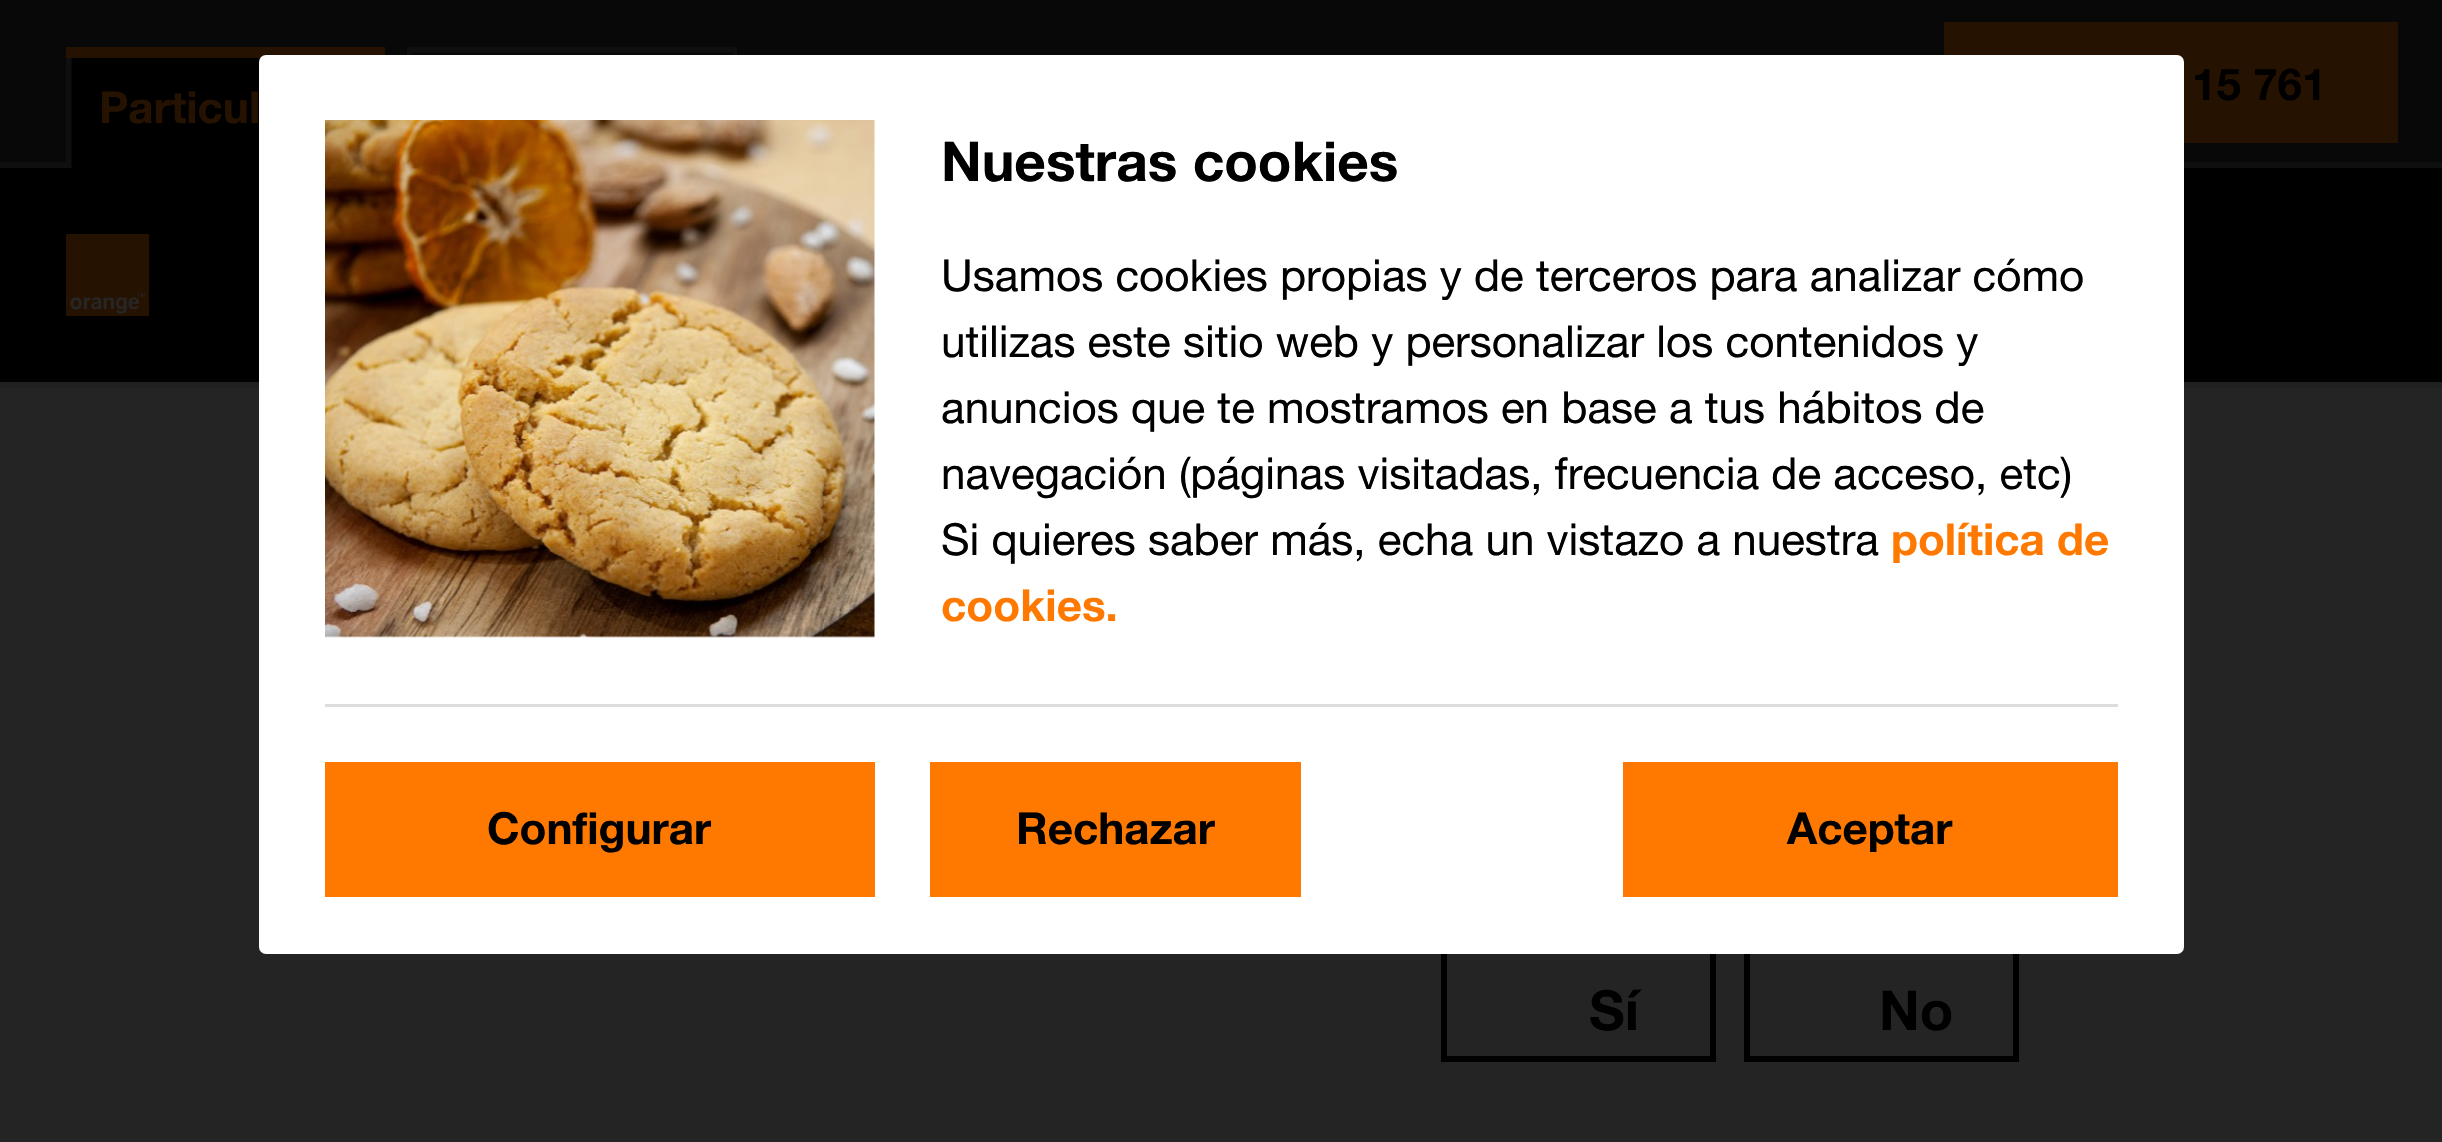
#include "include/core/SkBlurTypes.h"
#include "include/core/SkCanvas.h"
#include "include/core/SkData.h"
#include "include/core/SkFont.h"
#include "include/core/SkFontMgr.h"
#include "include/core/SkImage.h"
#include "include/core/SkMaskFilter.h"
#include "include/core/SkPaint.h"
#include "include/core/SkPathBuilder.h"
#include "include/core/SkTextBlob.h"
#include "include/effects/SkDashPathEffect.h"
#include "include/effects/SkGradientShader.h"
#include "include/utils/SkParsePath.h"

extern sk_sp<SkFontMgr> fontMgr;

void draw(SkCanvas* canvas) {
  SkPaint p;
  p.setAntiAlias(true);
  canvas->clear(SkColorSetRGB(36, 36, 36));
  p.setStyle(SkPaint::kStroke_Style);
  p.setStrokeWidth(6);
  p.setColor(SkColorSetARGB(51, 15, 15, 15));
  canvas->drawRect(SkRect::MakeLTRB(-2, -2, 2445, 385), p);
  p.setStyle(SkPaint::kFill_Style);
  p.setColor(SK_ColorBLACK);
  canvas->drawRect(SkRect::MakeLTRB(0, 168, 2442, 382), p);
  p.setColor(SkColorSetRGB(8, 8, 8));
  canvas->drawRect(SkRect::MakeLTRB(0, 0, 2442, 162), p);
  p.setColor(SkColorSetRGB(38, 18, 0));
  canvas->drawRect(SkRect::MakeLTRB(1944, 22, 2398, 143), p);
  p.setColor(SkColorSetRGB(15, 15, 15));
  canvas->drawRect(SkRect::MakeLTRB(0, 162, 2442, 168), p);
  p.setColor(SK_ColorBLACK);
  canvas->drawRect(SkRect::MakeLTRB(71, 58, 261, 168), p);
  canvas->save();
  canvas->clipRect(SkRect::MakeLTRB(66, 47, 385, 168));
  p.setStyle(SkPaint::kStroke_Style);
  p.setStrokeWidth(11);
  p.setColor(SkColorSetRGB(15, 15, 15));
  canvas->drawPath(SkPathBuilder().moveTo(66, 47).lineTo(66, 168).detach(), p);
  canvas->restore();
  p.setStyle(SkPaint::kFill_Style);
  p.setColor(SkColorSetRGB(38, 18, 0));
  canvas->drawRect(SkRect::MakeLTRB(66, 47, 385, 58), p);
  canvas->save();
  canvas->clipRect(SkRect::MakeLTRB(407, 47, 737, 168));
  p.setStyle(SkPaint::kStroke_Style);
  p.setColor(SkColorSetRGB(15, 15, 15));
  canvas->drawPath(SkPathBuilder().moveTo(407, 47).lineTo(407, 168).detach(), p);
  canvas->restore();
  p.setStyle(SkPaint::kFill_Style);
  canvas->drawRect(SkRect::MakeLTRB(733, 47, 737, 55), p);
  canvas->save();
  canvas->clipRect(SkRect::MakeLTRB(407, 47, 737, 168));
  p.setStyle(SkPaint::kStroke_Style);
  canvas->drawPath(SkPathBuilder().moveTo(407, 47).lineTo(738.5f, 47).detach(), p);
  canvas->restore();
  canvas->drawImageRect(SkImages::DeferredFromEncodedData(SkData::MakeFromFileName("images/1.png")), SkRect::MakeLTRB(66, 234, 149, 316), SkSamplingOptions());
  p.setStrokeWidth(6);
  p.setColor(SK_ColorBLACK);
  canvas->drawRect(SkRect::MakeLTRB(1444, 946, 1713, 1059), p);
  canvas->drawRect(SkRect::MakeLTRB(1747, 946, 2016, 1059), p);
  p.setStyle(SkPaint::kFill_Style);
  p.setColor(SK_ColorWHITE);
  canvas->drawRoundRect(SkRect::MakeLTRB(259, 55, 2184, 954), 7, 7, p);
  canvas->drawImageRect(SkImages::DeferredFromEncodedData(SkData::MakeFromFileName("images/2.png")), SkRect::MakeLTRB(325, 120, 875, 638), SkSamplingOptions());
  p.setColor(SkColorSetRGB(221, 221, 221));
  canvas->drawRect(SkRect::MakeLTRB(325, 704, 2118, 707), p);
  p.setColor(SkColorSetRGB(255, 121, 0));
  canvas->drawRect(SkRect::MakeLTRB(325, 762, 875, 897), p);
  canvas->drawRect(SkRect::MakeLTRB(930, 762, 1301, 897), p);
  canvas->drawRect(SkRect::MakeLTRB(1623, 762, 2118, 897), p);
  SkFont font1(fontMgr->matchFamilyStyle("Helvetica Neue", SkFontStyle::Bold()), 44);
  font1.setSubpixel(true);
  p.setColor(SK_ColorBLACK);
  canvas->drawString("15 761", 2192, 100, font1, p);
  p.setColor(SkColorSetRGB(38, 18, 0));
  canvas->drawString("Particul", 99, 123, font1, p);
  SkFont font2(fontMgr->matchFamilyStyle("Helvetica Neue", SkFontStyle::Bold()), 55);
  font2.setSubpixel(true);
  p.setColor(SK_ColorBLACK);
  canvas->drawString("Nuestras cookies", 941, 181, font2, p);
  SkFont font3(fontMgr->matchFamilyStyle("Helvetica Neue", SkFontStyle::Normal()), 44);
  font3.setSubpixel(true);
  canvas->drawString("Usamos cookies propias y de terceros para analizar cómo", 941, 291, font3, p);
  canvas->drawString("utilizas este sitio web y personalizar los contenidos y", 941, 357, font3, p);
  canvas->drawString("anuncios que te mostramos en base a tus hábitos de", 941, 423, font3, p);
  canvas->drawString("navegación (páginas visitadas, frecuencia de acceso, etc)", 941, 489, font3, p);
  canvas->drawString("Si quieres saber más, echa un vistazo a nuestra", 941, 555, font3, p);
  p.setColor(SkColorSetRGB(255, 121, 0));
  canvas->drawString("política de", 1891, 555, font1, p);
  canvas->drawString("cookies.", 941, 621, font1, p);
  p.setColor(SK_ColorBLACK);
  canvas->drawString("Configurar", 487, 844, font1, p);
  canvas->drawString("Rechazar", 1016, 844, font1, p);
  canvas->drawString("Aceptar", 1787, 844, font1, p);
  canvas->drawString("Sí", 1589, 1030, font2, p);
  canvas->drawString("No", 1879, 1030, font2, p);
}
